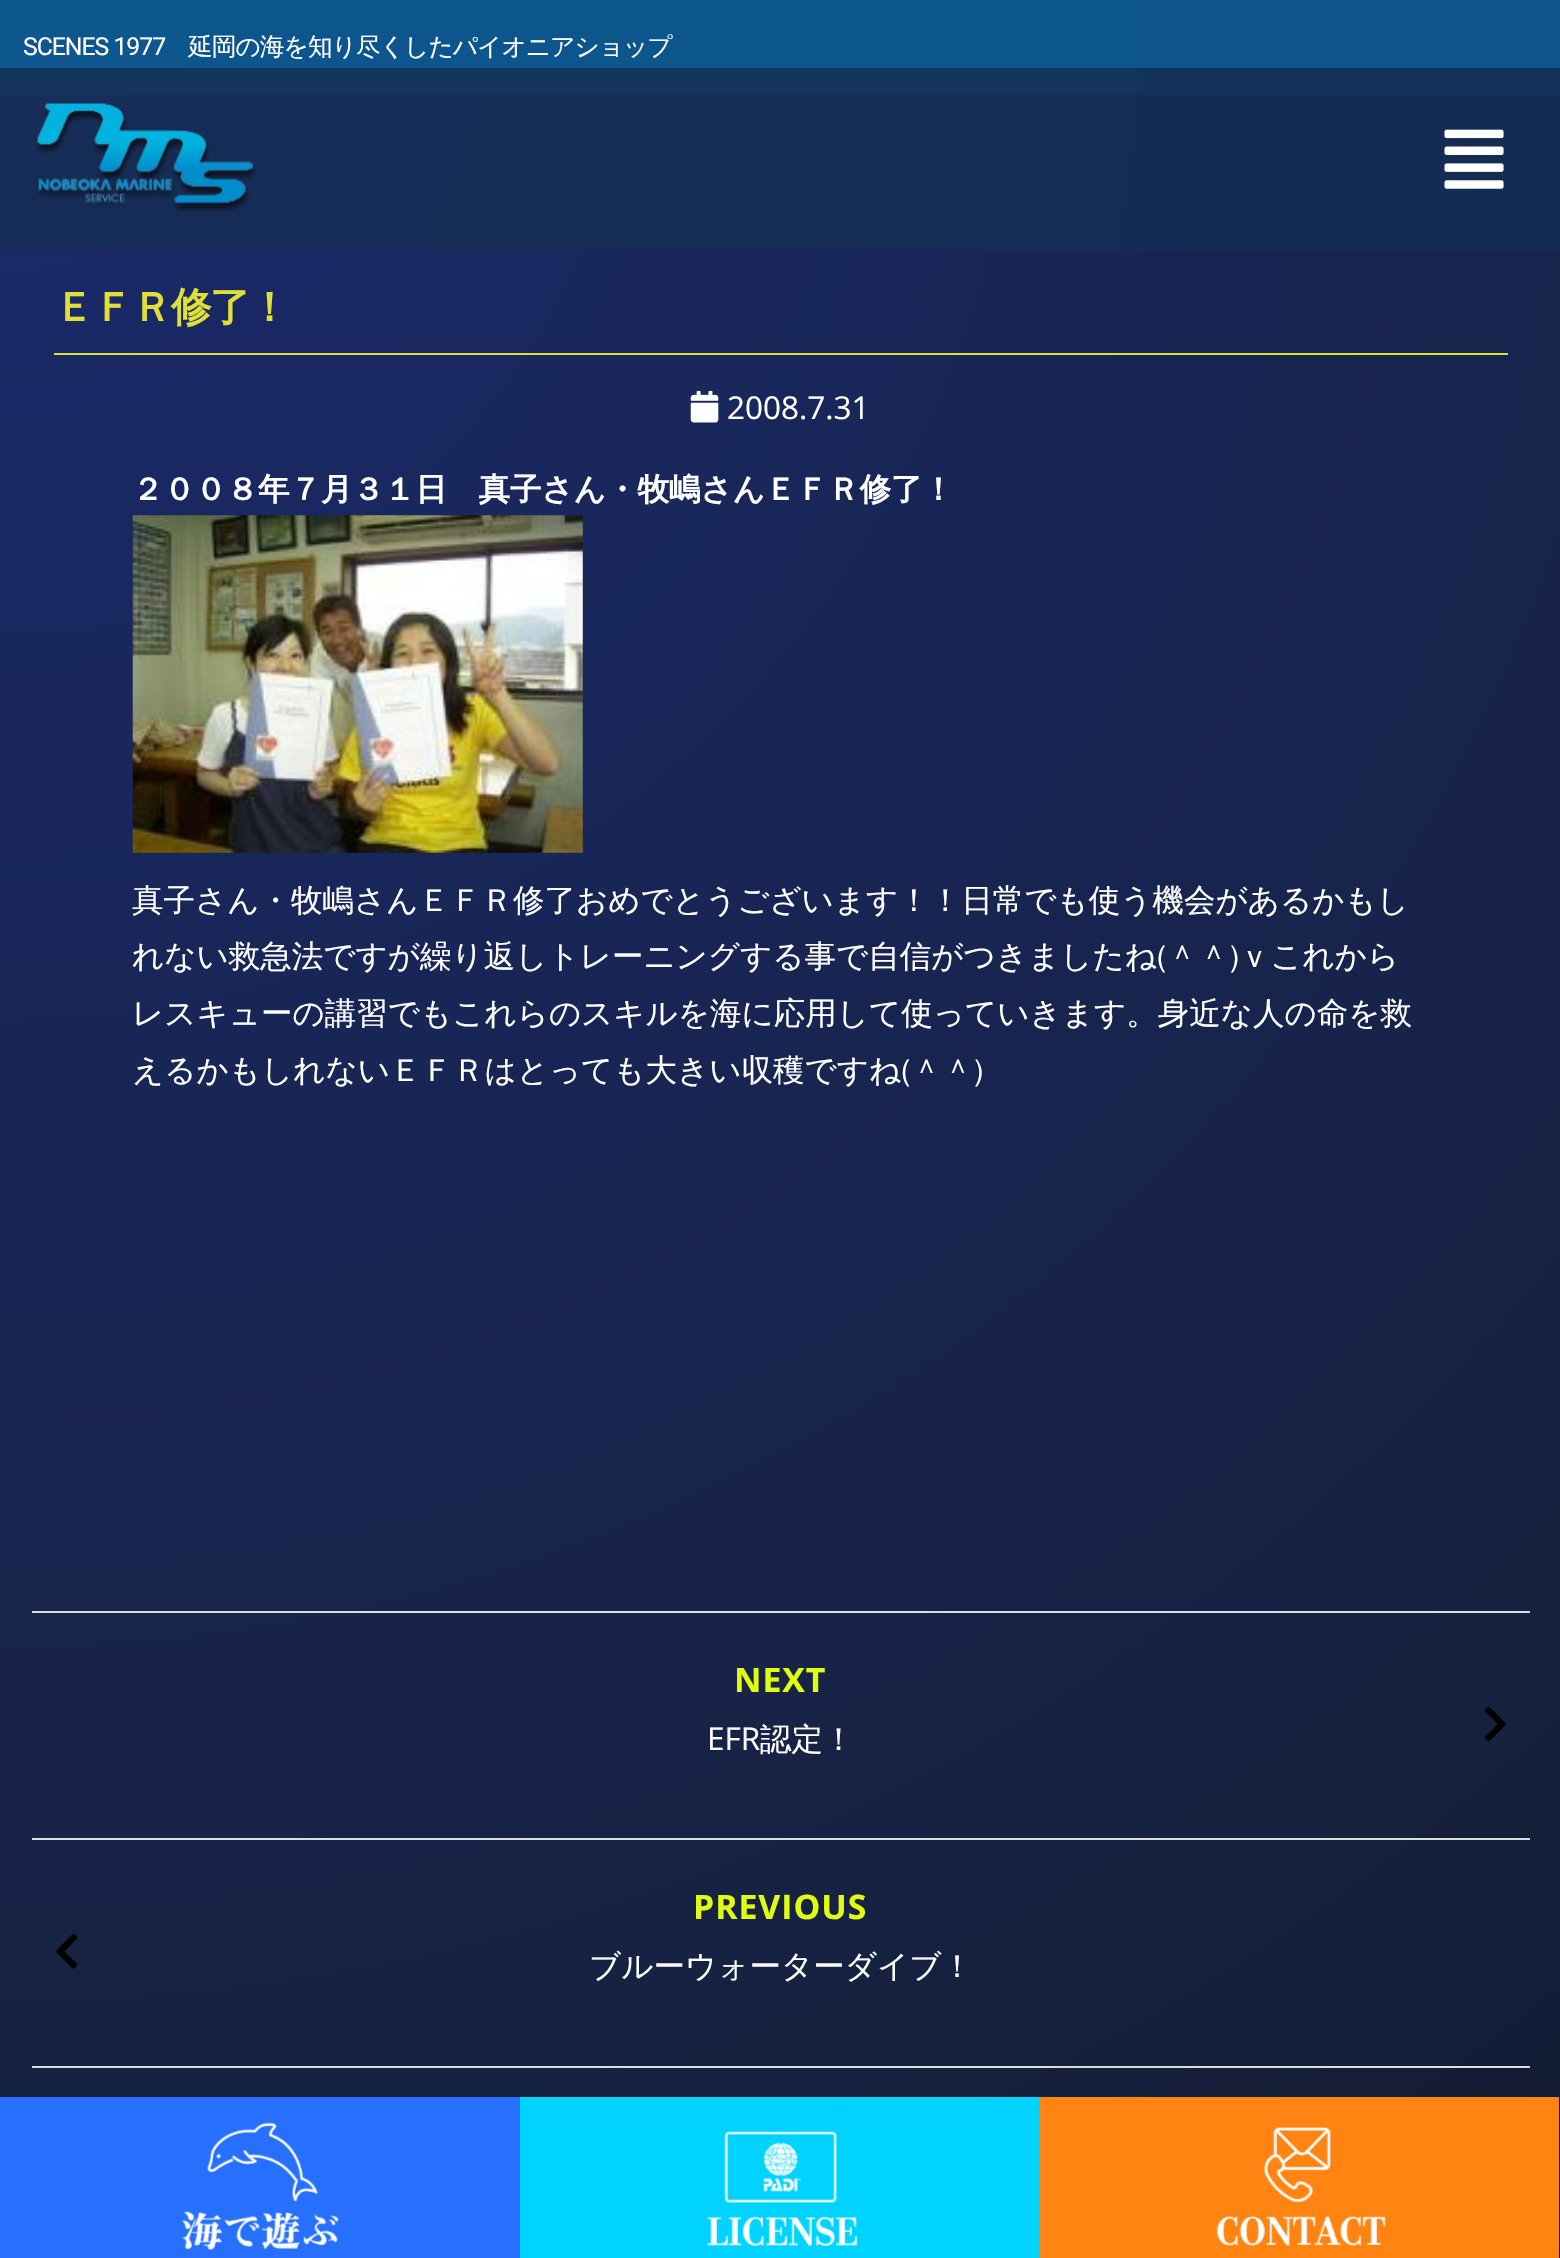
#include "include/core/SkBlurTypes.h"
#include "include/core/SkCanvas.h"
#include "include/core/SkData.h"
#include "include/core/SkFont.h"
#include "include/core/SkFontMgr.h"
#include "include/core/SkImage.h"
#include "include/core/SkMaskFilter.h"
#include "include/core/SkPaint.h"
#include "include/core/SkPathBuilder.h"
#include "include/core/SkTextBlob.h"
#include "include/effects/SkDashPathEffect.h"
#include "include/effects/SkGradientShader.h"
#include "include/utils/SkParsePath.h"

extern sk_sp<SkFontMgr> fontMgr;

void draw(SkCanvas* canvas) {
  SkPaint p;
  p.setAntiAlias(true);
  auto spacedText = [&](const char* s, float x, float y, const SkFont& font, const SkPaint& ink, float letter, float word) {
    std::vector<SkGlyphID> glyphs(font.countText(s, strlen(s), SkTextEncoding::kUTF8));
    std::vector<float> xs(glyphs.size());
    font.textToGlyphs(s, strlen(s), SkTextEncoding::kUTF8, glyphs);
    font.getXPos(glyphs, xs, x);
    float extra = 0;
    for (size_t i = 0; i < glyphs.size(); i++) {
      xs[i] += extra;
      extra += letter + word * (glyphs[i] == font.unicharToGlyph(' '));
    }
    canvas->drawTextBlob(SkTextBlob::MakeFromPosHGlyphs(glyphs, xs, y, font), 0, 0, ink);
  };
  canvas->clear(SK_ColorWHITE);
  {
    const SkColor colors[] = {SkColorSetRGB(26, 42, 108), SkColorSetRGB(22, 33, 62), SK_ColorBLACK};
    const float stops[] = {0, 0.5f, 1};
    p.setShader(SkGradientShader::MakeRadial({0, 0}, 4568, colors, stops, 3, SkTileMode::kClamp));
    p.setAlpha(255);
  }
  canvas->drawRect(SkRect::MakeLTRB(0, 250, 1560, 2258), p);
  {
    const SkColor colors[] = {SkColorSetRGB(21, 45, 87), SkColorSetRGB(20, 44, 80), SkColorSetRGB(17, 40, 71)};
    const float stops[] = {0, 0.5f, 1};
    p.setShader(SkGradientShader::MakeRadial({0, 0}, 4568, colors, stops, 3, SkTileMode::kClamp));
    p.setAlpha(255);
  }
  canvas->drawRect(SkRect::MakeLTRB(0, 95, 1560, 250), p);
  {
    const SkColor colors[] = {SkColorSetRGB(13, 86, 142), SkColorSetRGB(13, 85, 136), SkColorSetRGB(9, 80, 127)};
    const float stops[] = {0, 0.5f, 1};
    p.setShader(SkGradientShader::MakeRadial({0, 0}, 4568, colors, stops, 3, SkTileMode::kClamp));
    p.setAlpha(255);
  }
  canvas->drawRect(SkRect::MakeLTRB(0, 0, 1560, 68), p);
  {
    const SkColor colors[] = {SkColorSetRGB(19, 52, 91), SkColorSetRGB(19, 51, 90), SkColorSetRGB(18, 51, 89)};
    const float stops[] = {0, 0.5f, 1};
    p.setShader(SkGradientShader::MakeRadial({0, 0}, 4568, colors, stops, 3, SkTileMode::kClamp));
    p.setAlpha(255);
  }
  canvas->drawRect(SkRect::MakeLTRB(0, 68, 1560, 95), p);
  canvas->drawImageRect(SkImages::DeferredFromEncodedData(SkData::MakeFromFileName("images/1.png")), SkRect::MakeLTRB(36, 103, 257, 213), SkSamplingOptions());
  canvas->drawImageRect(SkImages::DeferredFromEncodedData(SkData::MakeFromFileName("images/2.png")), SkRect::MakeLTRB(1444, 129, 1504, 189), SkSamplingOptions());
  p.setShader(nullptr);
  p.setColor(SkColorSetRGB(225, 223, 55));
  canvas->drawRect(SkRect::MakeLTRB(54, 353, 1508, 355), p);
  canvas->drawImageRect(SkImages::DeferredFromEncodedData(SkData::MakeFromFileName("images/3.png")), SkRect::MakeLTRB(690, 390, 719, 423), SkSamplingOptions());
  canvas->drawImageRect(SkImages::DeferredFromEncodedData(SkData::MakeFromFileName("images/4.png")), SkRect::MakeLTRB(132, 515, 583, 853), SkSamplingOptions());
  p.setColor(SkColorSetRGB(221, 221, 221));
  canvas->drawRect(SkRect::MakeLTRB(32, 2066, 1530, 2068), p);
  canvas->drawRect(SkRect::MakeLTRB(32, 1611, 1530, 1613), p);
  canvas->drawImageRect(SkImages::DeferredFromEncodedData(SkData::MakeFromFileName("images/5.png")), SkRect::MakeLTRB(1485, 1706, 1506, 1742), SkSamplingOptions());
  canvas->drawRect(SkRect::MakeLTRB(32, 1838, 1530, 1840), p);
  canvas->drawImageRect(SkImages::DeferredFromEncodedData(SkData::MakeFromFileName("images/6.png")), SkRect::MakeLTRB(56, 1934, 78, 1969), SkSamplingOptions());
  p.setColor(SkColorSetRGB(39, 112, 255));
  canvas->drawRect(SkRect::MakeLTRB(0, 2097, 520, 2258), p);
  canvas->drawImageRect(SkImages::DeferredFromEncodedData(SkData::MakeFromFileName("images/7.png")), SkRect::MakeLTRB(181, 2122, 339, 2250), SkSamplingOptions());
  p.setColor(SkColorSetRGB(0, 211, 255));
  canvas->drawRect(SkRect::MakeLTRB(520, 2097, 1040, 2258), p);
  canvas->drawImageRect(SkImages::DeferredFromEncodedData(SkData::MakeFromFileName("images/8.png")), SkRect::MakeLTRB(707, 2131, 858, 2246), SkSamplingOptions());
  p.setColor(SkColorSetRGB(255, 132, 17));
  canvas->drawRect(SkRect::MakeLTRB(1040, 2097, 1559, 2258), p);
  canvas->drawImageRect(SkImages::DeferredFromEncodedData(SkData::MakeFromFileName("images/9.png")), SkRect::MakeLTRB(1216, 2127, 1386, 2246), SkSamplingOptions());
  SkFont font1(fontMgr->matchFamilyStyle("Roboto", SkFontStyle::Normal()), 24.75f);
  font1.setSubpixel(true);
  p.setColor(SK_ColorWHITE);
  spacedText("SCENES 1977", 23, 55, font1, p, -1, 0);
  SkFont font2(fontMgr->matchFamilyStyle("WenQuanYi Zen Hei", SkFontStyle(500, SkFontStyle::kNormal_Width, SkFontStyle::kUpright_Slant)), 24.75f);
  font2.setSubpixel(true);
  spacedText("延岡の海を知り尽くしたパイオニアショップ", 188, 55, font2, p, -1, 0);
  SkFont font3(fontMgr->matchFamilyStyle("WenQuanYi Zen Hei", SkFontStyle::Bold()), 40.5f);
  font3.setSubpixel(true);
  p.setColor(SkColorSetRGB(225, 223, 55));
  spacedText("ＥＦＲ修了！", 54, 321, font3, p, -1.5f, 0);
  SkFont font4(fontMgr->matchFamilyStyle("Open Sans", SkFontStyle::Normal()), 31.5f);
  font4.setSubpixel(true);
  p.setColor(SK_ColorWHITE);
  canvas->drawString("2008.7.31", 727, 419, font4, p);
  SkFont font5(fontMgr->matchFamilyStyle("WenQuanYi Zen Hei", SkFontStyle::Bold()), 31.5f);
  font5.setSubpixel(true);
  canvas->drawString("２００８年７月３１日　真子さん・牧嶋さんＥＦＲ修了！", 132, 500, font5, p);
  SkFont font6(fontMgr->matchFamilyStyle("WenQuanYi Zen Hei", SkFontStyle(500, SkFontStyle::kNormal_Width, SkFontStyle::kUpright_Slant)), 31.5f);
  font6.setSubpixel(true);
  canvas->drawString("真子さん・牧嶋さんＥＦＲ修了おめでとうございます！！日常でも使う機会があるかもし", 132, 911, font6, p);
  canvas->drawString("れない救急法ですが繰り返しトレーニングする事で自信がつきましたね(＾＾)ｖこれから", 132, 967, font6, p);
  canvas->drawString("レスキューの講習でもこれらのスキルを海に応用して使っていきます。身近な人の命を救", 132, 1024, font6, p);
  canvas->drawString("えるかもしれないＥＦＲはとっても大きい収穫ですね(＾＾)", 132, 1081, font6, p);
  SkFont font7(fontMgr->matchFamilyStyle("Open Sans", SkFontStyle::Bold()), 33.75f);
  font7.setSubpixel(true);
  p.setColor(SkColorSetRGB(225, 252, 17));
  spacedText("NEXT", 734, 1692, font7, p, 1, 0);
  p.setColor(SK_ColorWHITE);
  canvas->drawString("EFR", 707, 1750, font4, p);
  canvas->drawString("認定！", 760, 1750, font6, p);
  p.setColor(SkColorSetRGB(225, 252, 17));
  spacedText("PREVIOUS", 693, 1919, font7, p, 1, 0);
  p.setColor(SK_ColorWHITE);
  canvas->drawString("ブルーウォーターダイブ！", 589, 1977, font6, p);
}
